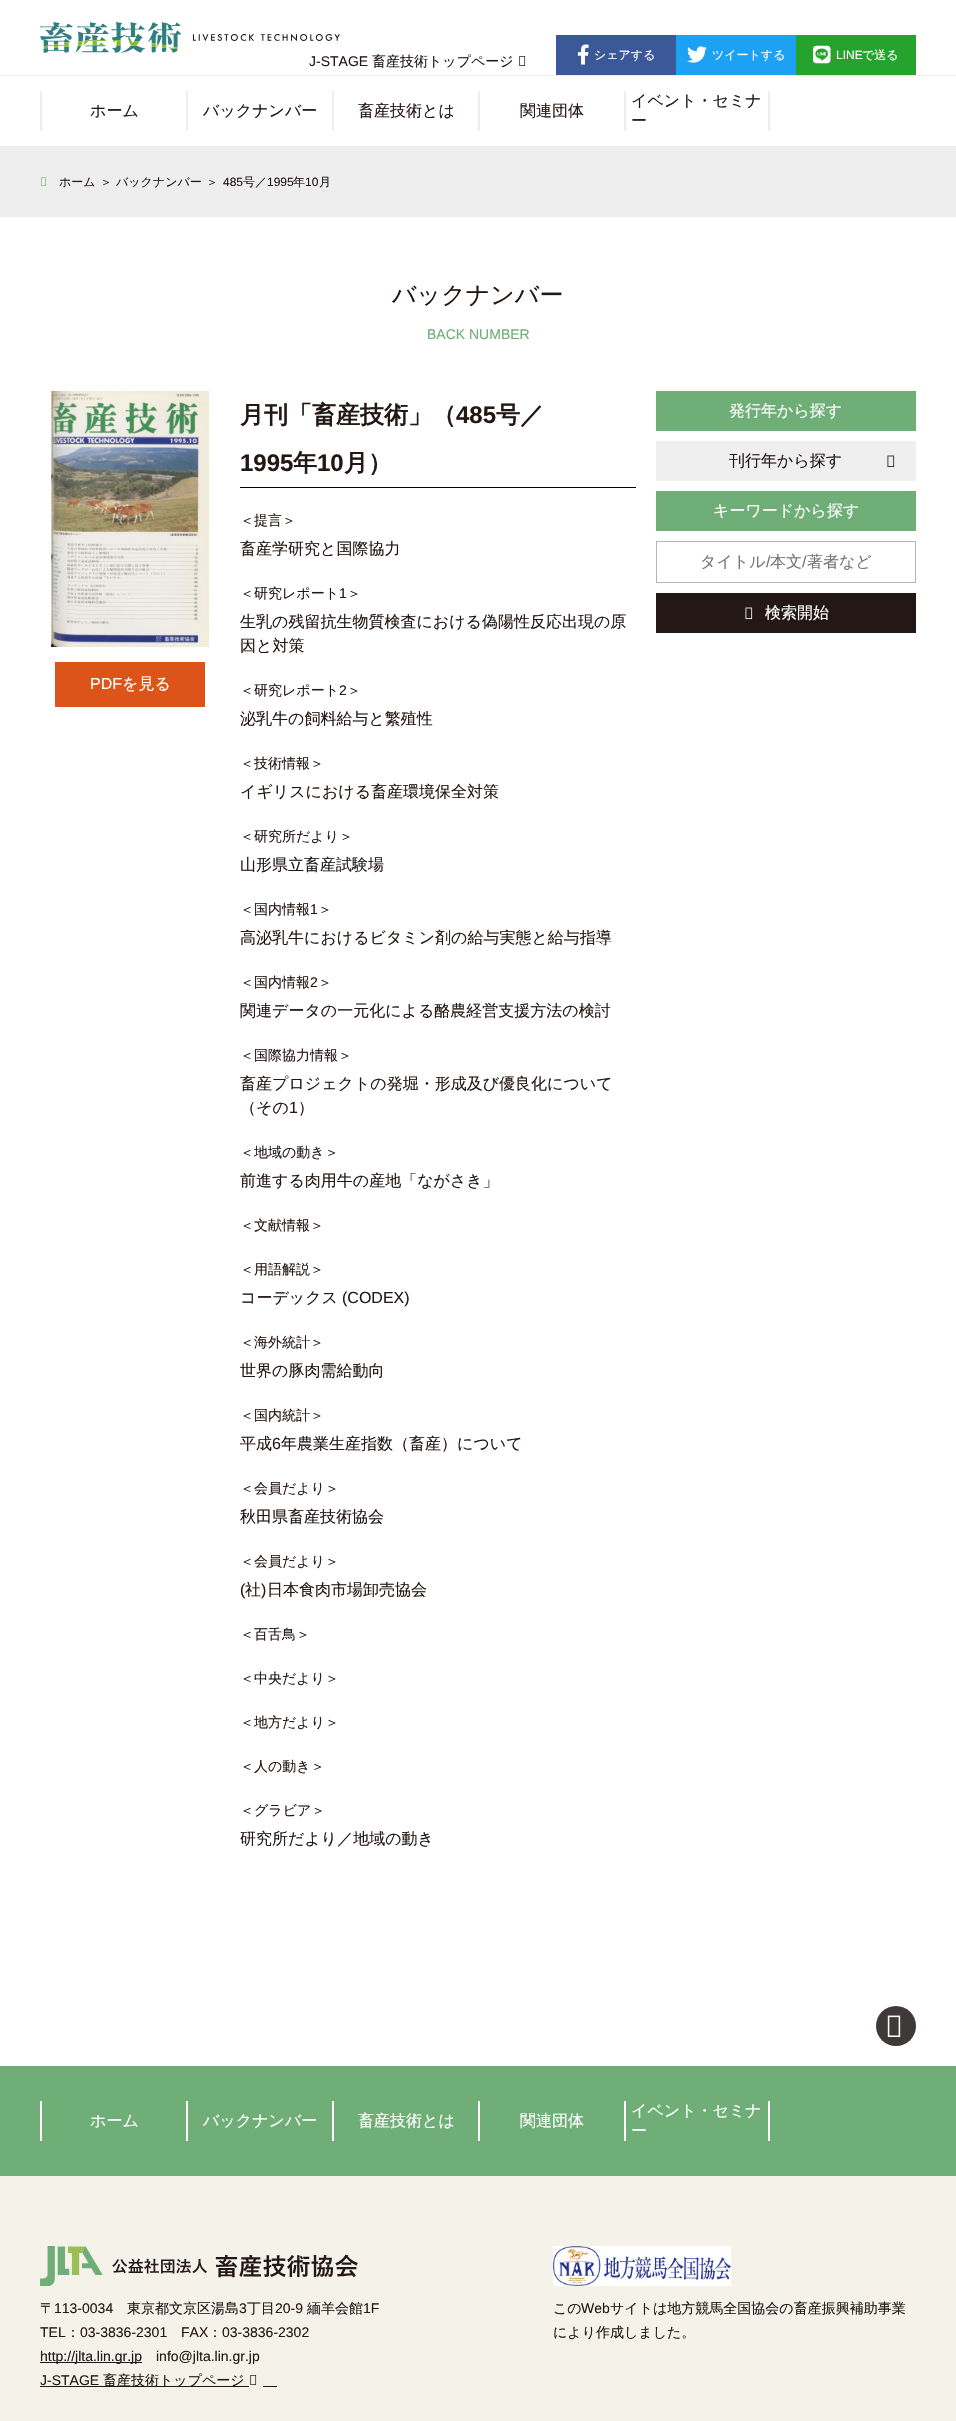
#include "include/core/SkBlurTypes.h"
#include "include/core/SkCanvas.h"
#include "include/core/SkData.h"
#include "include/core/SkFont.h"
#include "include/core/SkFontMgr.h"
#include "include/core/SkImage.h"
#include "include/core/SkMaskFilter.h"
#include "include/core/SkPaint.h"
#include "include/core/SkPathBuilder.h"
#include "include/core/SkTextBlob.h"
#include "include/effects/SkDashPathEffect.h"
#include "include/effects/SkGradientShader.h"
#include "include/utils/SkParsePath.h"

extern sk_sp<SkFontMgr> fontMgr;

void draw(SkCanvas* canvas) {
  SkPaint p;
  p.setAntiAlias(true);
  canvas->clear(SK_ColorWHITE);
  p.setColor(SkColorSetRGB(238, 238, 238));
  canvas->drawRect(SkRect::MakeLTRB(0, 75, 956, 76), p);
  canvas->drawImageRect(SkImages::DeferredFromEncodedData(SkData::MakeFromFileName("images/1.png")), SkRect::MakeLTRB(40, 22, 340, 53), SkSamplingOptions());
  canvas->drawImageRect(SkImages::DeferredFromEncodedData(SkData::MakeFromFileName("images/2.png")), SkRect::MakeLTRB(519, 56, 526, 66), SkSamplingOptions());
  p.setColor(SkColorSetRGB(59, 89, 153));
  canvas->drawRect(SkRect::MakeLTRB(556, 35, 676, 75), p);
  canvas->drawImageRect(SkImages::DeferredFromEncodedData(SkData::MakeFromFileName("images/3.png")), SkRect::MakeLTRB(577, 44, 589, 65), SkSamplingOptions());
  p.setColor(SkColorSetRGB(29, 161, 243));
  canvas->drawRect(SkRect::MakeLTRB(676, 35, 796, 75), p);
  canvas->drawImageRect(SkImages::DeferredFromEncodedData(SkData::MakeFromFileName("images/4.png")), SkRect::MakeLTRB(687, 46, 707, 63), SkSamplingOptions());
  p.setColor(SkColorSetRGB(38, 163, 45));
  canvas->drawRect(SkRect::MakeLTRB(796, 35, 916, 75), p);
  canvas->drawImageRect(SkImages::DeferredFromEncodedData(SkData::MakeFromFileName("images/5.png")), SkRect::MakeLTRB(813, 45, 831, 64), SkSamplingOptions());
  p.setColor(SkColorSetRGB(238, 238, 238));
  canvas->drawRect(SkRect::MakeLTRB(40, 91, 42, 131), p);
  canvas->drawRect(SkRect::MakeLTRB(186, 91, 188, 131), p);
  canvas->drawRect(SkRect::MakeLTRB(332, 91, 334, 131), p);
  canvas->drawRect(SkRect::MakeLTRB(478, 91, 480, 131), p);
  canvas->drawRect(SkRect::MakeLTRB(768, 91, 770, 131), p);
  canvas->drawRect(SkRect::MakeLTRB(624, 91, 626, 131), p);
  canvas->drawRect(SkRect::MakeLTRB(0, 146, 956, 217), p);
  canvas->drawImageRect(SkImages::DeferredFromEncodedData(SkData::MakeFromFileName("images/6.png")), SkRect::MakeLTRB(41, 177, 47, 186), SkSamplingOptions());
  canvas->drawImageRect(SkImages::DeferredFromEncodedData(SkData::MakeFromFileName("images/7.png")), SkRect::MakeLTRB(51, 391, 209, 647), SkSamplingOptions());
  p.setColor(SkColorSetRGB(221, 84, 26));
  canvas->drawRect(SkRect::MakeLTRB(55, 662, 205, 707), p);
  p.setColor(SK_ColorBLACK);
  canvas->drawRect(SkRect::MakeLTRB(240, 487, 636, 488), p);
  p.setColor(SkColorSetRGB(111, 174, 118));
  canvas->drawRect(SkRect::MakeLTRB(656, 391, 916, 431), p);
  p.setColor(SkColorSetRGB(239, 239, 239));
  canvas->drawRect(SkRect::MakeLTRB(656, 441, 916, 481), p);
  canvas->drawImageRect(SkImages::DeferredFromEncodedData(SkData::MakeFromFileName("images/8.png")), SkRect::MakeLTRB(887, 455, 895, 467), SkSamplingOptions());
  p.setColor(SkColorSetRGB(111, 174, 118));
  canvas->drawRect(SkRect::MakeLTRB(656, 491, 916, 531), p);
  p.setStyle(SkPaint::kStroke_Style);
  p.setStrokeWidth(1);
  p.setColor(SkColorSetRGB(181, 181, 182));
  canvas->drawRect(SkRect::MakeLTRB(656.5f, 541.5f, 915.5f, 582.5f), p);
  p.setStyle(SkPaint::kFill_Style);
  p.setColor(SkColorSetRGB(35, 24, 21));
  canvas->drawRect(SkRect::MakeLTRB(656, 593, 916, 633), p);
  canvas->drawImageRect(SkImages::DeferredFromEncodedData(SkData::MakeFromFileName("images/9.png")), SkRect::MakeLTRB(745, 607, 753, 619), SkSamplingOptions());
  p.setColor(SkColorSetRGB(62, 58, 57));
  canvas->drawCircle(896, 2026, 20, p);
  canvas->drawImageRect(SkImages::DeferredFromEncodedData(SkData::MakeFromFileName("images/10.png")), SkRect::MakeLTRB(887, 2015, 901, 2037), SkSamplingOptions());
  p.setColor(SkColorSetRGB(111, 174, 118));
  canvas->drawRect(SkRect::MakeLTRB(0, 2066, 956, 2176), p);
  p.setColor(SK_ColorWHITE);
  canvas->drawRect(SkRect::MakeLTRB(40, 2101, 42, 2141), p);
  canvas->drawRect(SkRect::MakeLTRB(186, 2101, 188, 2141), p);
  canvas->drawRect(SkRect::MakeLTRB(332, 2101, 334, 2141), p);
  canvas->drawRect(SkRect::MakeLTRB(478, 2101, 480, 2141), p);
  canvas->drawRect(SkRect::MakeLTRB(768, 2101, 770, 2141), p);
  canvas->drawRect(SkRect::MakeLTRB(624, 2101, 626, 2141), p);
  p.setColor(SkColorSetRGB(245, 242, 233));
  canvas->drawRect(SkRect::MakeLTRB(0, 2176, 956, 2421), p);
  canvas->drawImageRect(SkImages::DeferredFromEncodedData(SkData::MakeFromFileName("images/11.png")), SkRect::MakeLTRB(40, 2246, 358, 2286), SkSamplingOptions());
  p.setColor(SkColorSetRGB(35, 24, 21));
  canvas->drawRect(SkRect::MakeLTRB(40, 2362, 142, 2363), p);
  canvas->drawRect(SkRect::MakeLTRB(40, 2386, 249, 2387), p);
  canvas->drawImageRect(SkImages::DeferredFromEncodedData(SkData::MakeFromFileName("images/12.png")), SkRect::MakeLTRB(250, 2375, 257, 2385), SkSamplingOptions());
  canvas->drawRect(SkRect::MakeLTRB(263, 2386, 277, 2387), p);
  canvas->drawImageRect(SkImages::DeferredFromEncodedData(SkData::MakeFromFileName("images/13.png")), SkRect::MakeLTRB(553, 2246, 731, 2286), SkSamplingOptions());
  SkFont font1(fontMgr->matchFamilyStyle("Liberation Sans", SkFontStyle::Normal()), 14);
  font1.setSubpixel(true);
  canvas->drawString("J-STAGE", 309, 66, font1, p);
  SkFont font2(fontMgr->matchFamilyStyle("WenQuanYi Zen Hei", SkFontStyle(500, SkFontStyle::kNormal_Width, SkFontStyle::kUpright_Slant)), 14);
  font2.setSubpixel(true);
  canvas->drawString("畜産技術トップページ", 372, 66, font2, p);
  SkFont font3(fontMgr->matchFamilyStyle("WenQuanYi Zen Hei", SkFontStyle(500, SkFontStyle::kNormal_Width, SkFontStyle::kUpright_Slant)), 12);
  font3.setSubpixel(true);
  p.setColor(SK_ColorWHITE);
  canvas->drawString("シェアする", 594, 59, font3, p);
  canvas->drawString("ツイートする", 712, 59, font3, p);
  SkFont font4(fontMgr->matchFamilyStyle("Liberation Sans", SkFontStyle::Normal()), 12);
  font4.setSubpixel(true);
  canvas->drawString("LINE", 836, 59, font4, p);
  canvas->drawString("で送る", 862, 59, font3, p);
  SkFont font5(fontMgr->matchFamilyStyle("WenQuanYi Zen Hei", SkFontStyle(500, SkFontStyle::kNormal_Width, SkFontStyle::kUpright_Slant)), 16);
  font5.setSubpixel(true);
  p.setColor(SkColorSetRGB(35, 24, 21));
  canvas->drawString("ホーム", 90, 116, font5, p);
  canvas->drawString("バックナンバー", 203, 116, font5, p);
  canvas->drawString("畜産技術とは", 358, 116, font5, p);
  canvas->drawString("関連団体", 520, 116, font5, p);
  canvas->drawString("イベント・セミナ", 631, 106, font5, p);
  canvas->drawString("ー", 631, 126, font5, p);
  canvas->drawString("ホーム", 59, 186, font3, p);
  canvas->drawString("＞", 100, 186, font3, p);
  canvas->drawString("バックナンバー", 116, 186, font3, p);
  canvas->drawString("＞", 206, 186, font3, p);
  canvas->drawString("485", 223, 186, font4, p);
  canvas->drawString("号／", 243, 186, font3, p);
  canvas->drawString("1995", 267, 186, font4, p);
  canvas->drawString("年", 293, 186, font3, p);
  canvas->drawString("10", 305, 186, font4, p);
  canvas->drawString("月", 319, 186, font3, p);
  SkFont font6(fontMgr->matchFamilyStyle("WenQuanYi Zen Hei", SkFontStyle(500, SkFontStyle::kNormal_Width, SkFontStyle::kUpright_Slant)), 24);
  font6.setSubpixel(true);
  canvas->drawString("バックナンバー", 392, 303, font6, p);
  p.setColor(SkColorSetRGB(111, 174, 118));
  canvas->drawString("BACK NUMBER", 427, 339, font1, p);
  SkFont font7(fontMgr->matchFamilyStyle("Liberation Sans", SkFontStyle::Normal()), 16);
  font7.setSubpixel(true);
  p.setColor(SK_ColorWHITE);
  canvas->drawString("PDF", 90, 689, font7, p);
  canvas->drawString("を見る", 122, 689, font5, p);
  SkFont font8(fontMgr->matchFamilyStyle("WenQuanYi Zen Hei", SkFontStyle::Bold()), 24);
  font8.setSubpixel(true);
  p.setColor(SkColorSetRGB(35, 24, 21));
  canvas->drawString("月刊「畜産技術」（", 240, 423, font8, p);
  SkFont font9(fontMgr->matchFamilyStyle("Liberation Sans", SkFontStyle::Bold()), 24);
  font9.setSubpixel(true);
  canvas->drawString("485", 456, 423, font9, p);
  canvas->drawString("号／", 496, 423, font8, p);
  canvas->drawString("1995", 240, 471, font9, p);
  canvas->drawString("年", 293, 471, font8, p);
  canvas->drawString("10", 317, 471, font9, p);
  canvas->drawString("月）", 344, 471, font8, p);
  canvas->drawString("＜提言＞", 240, 525, font2, p);
  canvas->drawString("畜産学研究と国際協力", 240, 554, font5, p);
  canvas->drawString("＜研究レポート", 240, 598, font2, p);
  canvas->drawString("1", 339, 598, font1, p);
  canvas->drawString("＞", 347, 598, font2, p);
  canvas->drawString("生乳の残留抗生物質検査における偽陽性反応出現の原", 240, 627, font5, p);
  canvas->drawString("因と対策", 240, 651, font5, p);
  canvas->drawString("＜研究レポート", 240, 695, font2, p);
  canvas->drawString("2", 339, 695, font1, p);
  canvas->drawString("＞", 347, 695, font2, p);
  canvas->drawString("泌乳牛の飼料給与と繁殖性", 240, 724, font5, p);
  canvas->drawString("＜技術情報＞", 240, 768, font2, p);
  canvas->drawString("イギリスにおける畜産環境保全対策", 240, 797, font5, p);
  canvas->drawString("＜研究所だより＞", 240, 841, font2, p);
  canvas->drawString("山形県立畜産試験場", 240, 870, font5, p);
  canvas->drawString("＜国内情報", 240, 914, font2, p);
  canvas->drawString("1", 310, 914, font1, p);
  canvas->drawString("＞", 318, 914, font2, p);
  canvas->drawString("高泌乳牛におけるビタミン剤の給与実態と給与指導", 240, 943, font5, p);
  canvas->drawString("＜国内情報", 240, 987, font2, p);
  canvas->drawString("2", 310, 987, font1, p);
  canvas->drawString("＞", 318, 987, font2, p);
  canvas->drawString("関連データの一元化による酪農経営支援方法の検討", 240, 1016, font5, p);
  canvas->drawString("＜国際協力情報＞", 240, 1060, font2, p);
  canvas->drawString("畜産プロジェクトの発堀・形成及び優良化について", 240, 1089, font5, p);
  canvas->drawString("（その", 240, 1113, font5, p);
  canvas->drawString("1", 289, 1113, font7, p);
  canvas->drawString("）", 298, 1113, font5, p);
  canvas->drawString("＜地域の動き＞", 240, 1157, font2, p);
  canvas->drawString("前進する肉用牛の産地「ながさき」", 240, 1186, font5, p);
  canvas->drawString("＜文献情報＞", 240, 1230, font2, p);
  canvas->drawString("＜用語解説＞", 240, 1274, font2, p);
  canvas->drawString("コーデックス", 240, 1303, font5, p);
  canvas->drawString("(CODEX)", 342, 1303, font7, p);
  canvas->drawString("＜海外統計＞", 240, 1347, font2, p);
  canvas->drawString("世界の豚肉需給動向", 240, 1376, font5, p);
  canvas->drawString("＜国内統計＞", 240, 1420, font2, p);
  canvas->drawString("平成", 240, 1449, font5, p);
  canvas->drawString("6", 272, 1449, font7, p);
  canvas->drawString("年農業生産指数（畜産）について", 281, 1449, font5, p);
  canvas->drawString("＜会員だより＞", 240, 1493, font2, p);
  canvas->drawString("秋田県畜産技術協会", 240, 1522, font5, p);
  canvas->drawString("＜会員だより＞", 240, 1566, font2, p);
  canvas->drawString("(", 240, 1595, font7, p);
  canvas->drawString("社", 245, 1595, font5, p);
  canvas->drawString(")", 261, 1595, font7, p);
  canvas->drawString("日本食肉市場卸売協会", 267, 1595, font5, p);
  canvas->drawString("＜百舌鳥＞", 240, 1639, font2, p);
  canvas->drawString("＜中央だより＞", 240, 1683, font2, p);
  canvas->drawString("＜地方だより＞", 240, 1727, font2, p);
  canvas->drawString("＜人の動き＞", 240, 1771, font2, p);
  canvas->drawString("＜グラビア＞", 240, 1815, font2, p);
  canvas->drawString("研究所だより／地域の動き", 240, 1844, font5, p);
  p.setColor(SK_ColorWHITE);
  canvas->drawString("発行年から探す", 729, 416, font5, p);
  p.setColor(SkColorSetRGB(35, 24, 21));
  canvas->drawString("刊行年から探す", 729, 466, font5, p);
  p.setColor(SK_ColorWHITE);
  canvas->drawString("キーワードから探す", 713, 516, font5, p);
  p.setColor(SkColorSetRGB(117, 117, 117));
  canvas->drawString("タイトル", 700, 567, font5, p);
  canvas->drawString("/", 766, 567, font7, p);
  canvas->drawString("本文", 770, 567, font5, p);
  canvas->drawString("/", 802, 567, font7, p);
  canvas->drawString("著者など", 807, 567, font5, p);
  p.setColor(SK_ColorWHITE);
  canvas->drawString("検索開始", 765, 618, font5, p);
  canvas->drawString("ホーム", 90, 2126, font5, p);
  canvas->drawString("バックナンバー", 203, 2126, font5, p);
  canvas->drawString("畜産技術とは", 358, 2126, font5, p);
  canvas->drawString("関連団体", 520, 2126, font5, p);
  canvas->drawString("イベント・セミナ", 631, 2116, font5, p);
  canvas->drawString("ー", 631, 2136, font5, p);
  p.setColor(SkColorSetRGB(35, 24, 21));
  canvas->drawString("〒", 40, 2313, font2, p);
  canvas->drawString("113-0034", 54, 2313, font1, p);
  canvas->drawString("東京都文京区湯島", 127, 2313, font2, p);
  canvas->drawString("3", 239, 2313, font1, p);
  canvas->drawString("丁目", 247, 2313, font2, p);
  canvas->drawString("20-9", 275, 2313, font1, p);
  canvas->drawString("緬羊会館", 307, 2313, font2, p);
  canvas->drawString("1F", 363, 2313, font1, p);
  canvas->drawString("TEL", 40, 2337, font1, p);
  canvas->drawString("：", 66, 2337, font2, p);
  canvas->drawString("03-3836-2301", 80, 2337, font1, p);
  canvas->drawString("FAX", 181, 2337, font1, p);
  canvas->drawString("：", 208, 2337, font2, p);
  canvas->drawString("03-3836-2302", 222, 2337, font1, p);
  canvas->drawString("http://jlta.lin.gr.jp", 40, 2361, font1, p);
  canvas->drawString("info@jlta.lin.gr.jp", 156, 2361, font1, p);
  canvas->drawString("J-STAGE", 40, 2385, font1, p);
  canvas->drawString("畜産技術トップページ", 103, 2385, font2, p);
  canvas->drawString("この", 553, 2313, font2, p);
  canvas->drawString("Web", 581, 2313, font1, p);
  canvas->drawString("サイトは地方競馬全国協会の畜産振興補助事業", 610, 2313, font2, p);
  canvas->drawString("により作成しました。", 553, 2337, font2, p);
}
